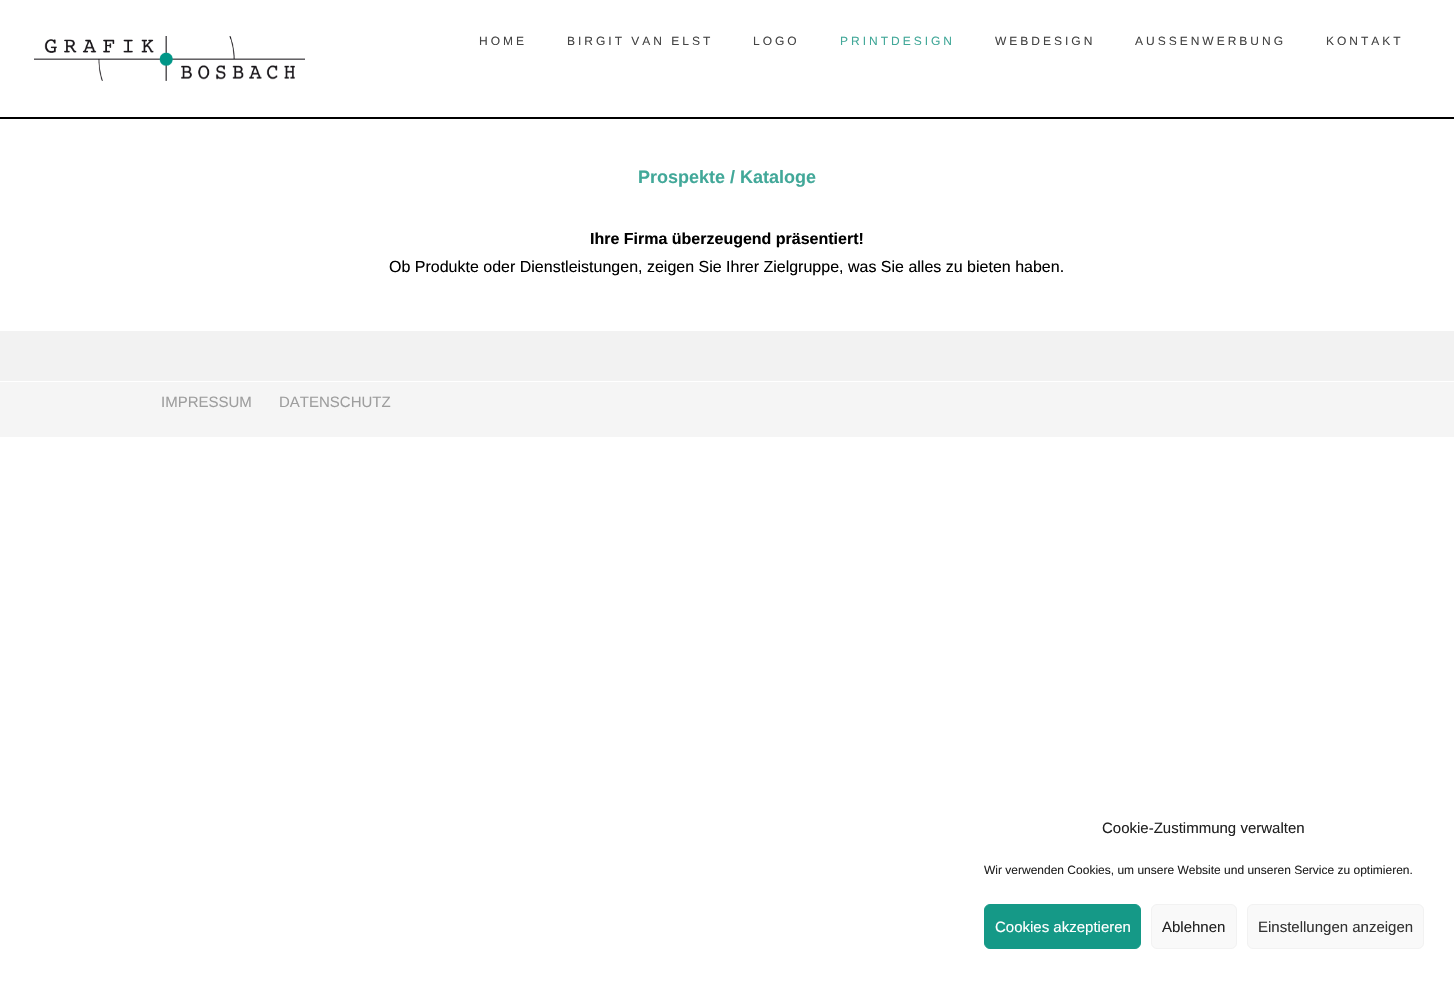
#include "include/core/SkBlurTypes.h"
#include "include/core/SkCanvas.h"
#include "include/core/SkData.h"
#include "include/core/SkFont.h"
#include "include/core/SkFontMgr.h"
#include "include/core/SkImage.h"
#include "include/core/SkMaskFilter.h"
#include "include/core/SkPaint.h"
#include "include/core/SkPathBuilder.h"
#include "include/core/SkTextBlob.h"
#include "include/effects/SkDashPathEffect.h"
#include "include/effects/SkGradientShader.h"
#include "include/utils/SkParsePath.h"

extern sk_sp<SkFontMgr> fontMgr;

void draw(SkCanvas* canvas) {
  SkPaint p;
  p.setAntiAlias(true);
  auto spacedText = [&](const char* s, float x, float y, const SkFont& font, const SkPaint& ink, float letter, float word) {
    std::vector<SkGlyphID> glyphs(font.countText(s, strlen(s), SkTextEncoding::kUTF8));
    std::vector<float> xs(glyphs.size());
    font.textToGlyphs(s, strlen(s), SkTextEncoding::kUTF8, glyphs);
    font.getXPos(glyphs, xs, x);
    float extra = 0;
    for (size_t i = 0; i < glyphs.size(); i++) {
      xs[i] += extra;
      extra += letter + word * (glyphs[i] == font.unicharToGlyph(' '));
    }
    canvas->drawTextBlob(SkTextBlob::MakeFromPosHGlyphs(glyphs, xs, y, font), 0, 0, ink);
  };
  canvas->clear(SK_ColorWHITE);
  canvas->drawImageRect(SkImages::DeferredFromEncodedData(SkData::MakeFromFileName("images/1.png")), SkRect::MakeLTRB(34, 36, 305, 81), SkSamplingOptions());
  p.setColor(SK_ColorBLACK);
  canvas->drawRect(SkRect::MakeLTRB(0, 117, 1454, 119), p);
  p.setColor(SkColorSetRGB(242, 242, 242));
  canvas->drawRect(SkRect::MakeLTRB(0, 331, 1454, 381), p);
  p.setColor(SkColorSetRGB(245, 245, 245));
  canvas->drawRect(SkRect::MakeLTRB(0, 382, 1454, 437), p);
  p.setColor(SkColorSetRGB(21, 153, 135));
  canvas->drawRoundRect(SkRect::MakeLTRB(984.5f, 904.5f, 1140.5f, 948.5f), 5.5f, 5.5f, p);
  p.setStyle(SkPaint::kStroke_Style);
  p.setStrokeWidth(1);
  canvas->drawRoundRect(SkRect::MakeLTRB(984.5f, 904.5f, 1140.5f, 948.5f), 5.5f, 5.5f, p);
  p.setStyle(SkPaint::kFill_Style);
  p.setColor(SkColorSetRGB(249, 249, 249));
  canvas->drawRoundRect(SkRect::MakeLTRB(1151.5f, 904.5f, 1236.5f, 948.5f), 5.5f, 5.5f, p);
  p.setStyle(SkPaint::kStroke_Style);
  p.setColor(SkColorSetRGB(242, 242, 242));
  canvas->drawRoundRect(SkRect::MakeLTRB(1151.5f, 904.5f, 1236.5f, 948.5f), 5.5f, 5.5f, p);
  p.setStyle(SkPaint::kFill_Style);
  p.setColor(SkColorSetRGB(249, 249, 249));
  canvas->drawRoundRect(SkRect::MakeLTRB(1247.5f, 904.5f, 1423.5f, 948.5f), 5.5f, 5.5f, p);
  p.setStyle(SkPaint::kStroke_Style);
  p.setColor(SkColorSetRGB(242, 242, 242));
  canvas->drawRoundRect(SkRect::MakeLTRB(1247.5f, 904.5f, 1423.5f, 948.5f), 5.5f, 5.5f, p);
  SkFont font1(fontMgr->matchFamilyStyle("Liberation Sans", SkFontStyle::Normal()), 12);
  font1.setSubpixel(true);
  p.setStyle(SkPaint::kFill_Style);
  p.setColor(SkColorSetRGB(68, 68, 68));
  spacedText("HOME", 479, 45, font1, p, 3, 0);
  spacedText("BIRGIT VAN ELST", 567, 45, font1, p, 3, 0);
  spacedText("LOGO", 753, 45, font1, p, 3, 0);
  p.setColor(SkColorSetRGB(66, 168, 153));
  spacedText("PRINTDESIGN", 840, 45, font1, p, 3, 0);
  p.setColor(SkColorSetRGB(68, 68, 68));
  spacedText("WEBDESIGN", 995, 45, font1, p, 3, 0);
  spacedText("AUSSENWERBUNG", 1135, 45, font1, p, 3, 0);
  spacedText("KONTAKT", 1326, 45, font1, p, 3, 0);
  SkFont font2(fontMgr->matchFamilyStyle("Liberation Sans", SkFontStyle::Bold()), 18);
  font2.setSubpixel(true);
  p.setColor(SkColorSetRGB(66, 168, 153));
  canvas->drawString("Prospekte / Kataloge", 638, 183, font2, p);
  SkFont font3(fontMgr->matchFamilyStyle("Liberation Sans", SkFontStyle::Bold()), 16);
  font3.setSubpixel(true);
  p.setColor(SK_ColorBLACK);
  canvas->drawString("Ihre Firma überzeugend präsentiert!", 590, 244, font3, p);
  SkFont font4(fontMgr->matchFamilyStyle("Liberation Sans", SkFontStyle::Normal()), 16);
  font4.setSubpixel(true);
  canvas->drawString("Ob Produkte oder Dienstleistungen, zeigen Sie Ihrer Zielgruppe, was Sie alles zu bieten haben.", 389, 272, font4, p);
  SkFont font5(fontMgr->matchFamilyStyle("Liberation Sans", SkFontStyle::Normal()), 15);
  font5.setSubpixel(true);
  p.setColor(SkColorSetRGB(158, 158, 158));
  canvas->drawString("IMPRESSUM", 161, 407, font5, p);
  canvas->drawString("DATENSCHUTZ", 279, 407, font5, p);
  p.setColor(SkColorSetRGB(34, 34, 34));
  canvas->drawString("Cookie-Zustimmung verwalten", 1102, 833, font5, p);
  canvas->drawString("Wir verwenden Cookies, um unsere Website und unseren Service zu optimieren.", 984, 874, font1, p);
  p.setColor(SK_ColorWHITE);
  canvas->drawString("Cookies akzeptieren", 995, 932, font5, p);
  p.setColor(SkColorSetRGB(34, 34, 34));
  canvas->drawString("Ablehnen", 1162, 932, font5, p);
  p.setColor(SkColorSetRGB(51, 51, 51));
  canvas->drawString("Einstellungen anzeigen", 1258, 932, font5, p);
}
